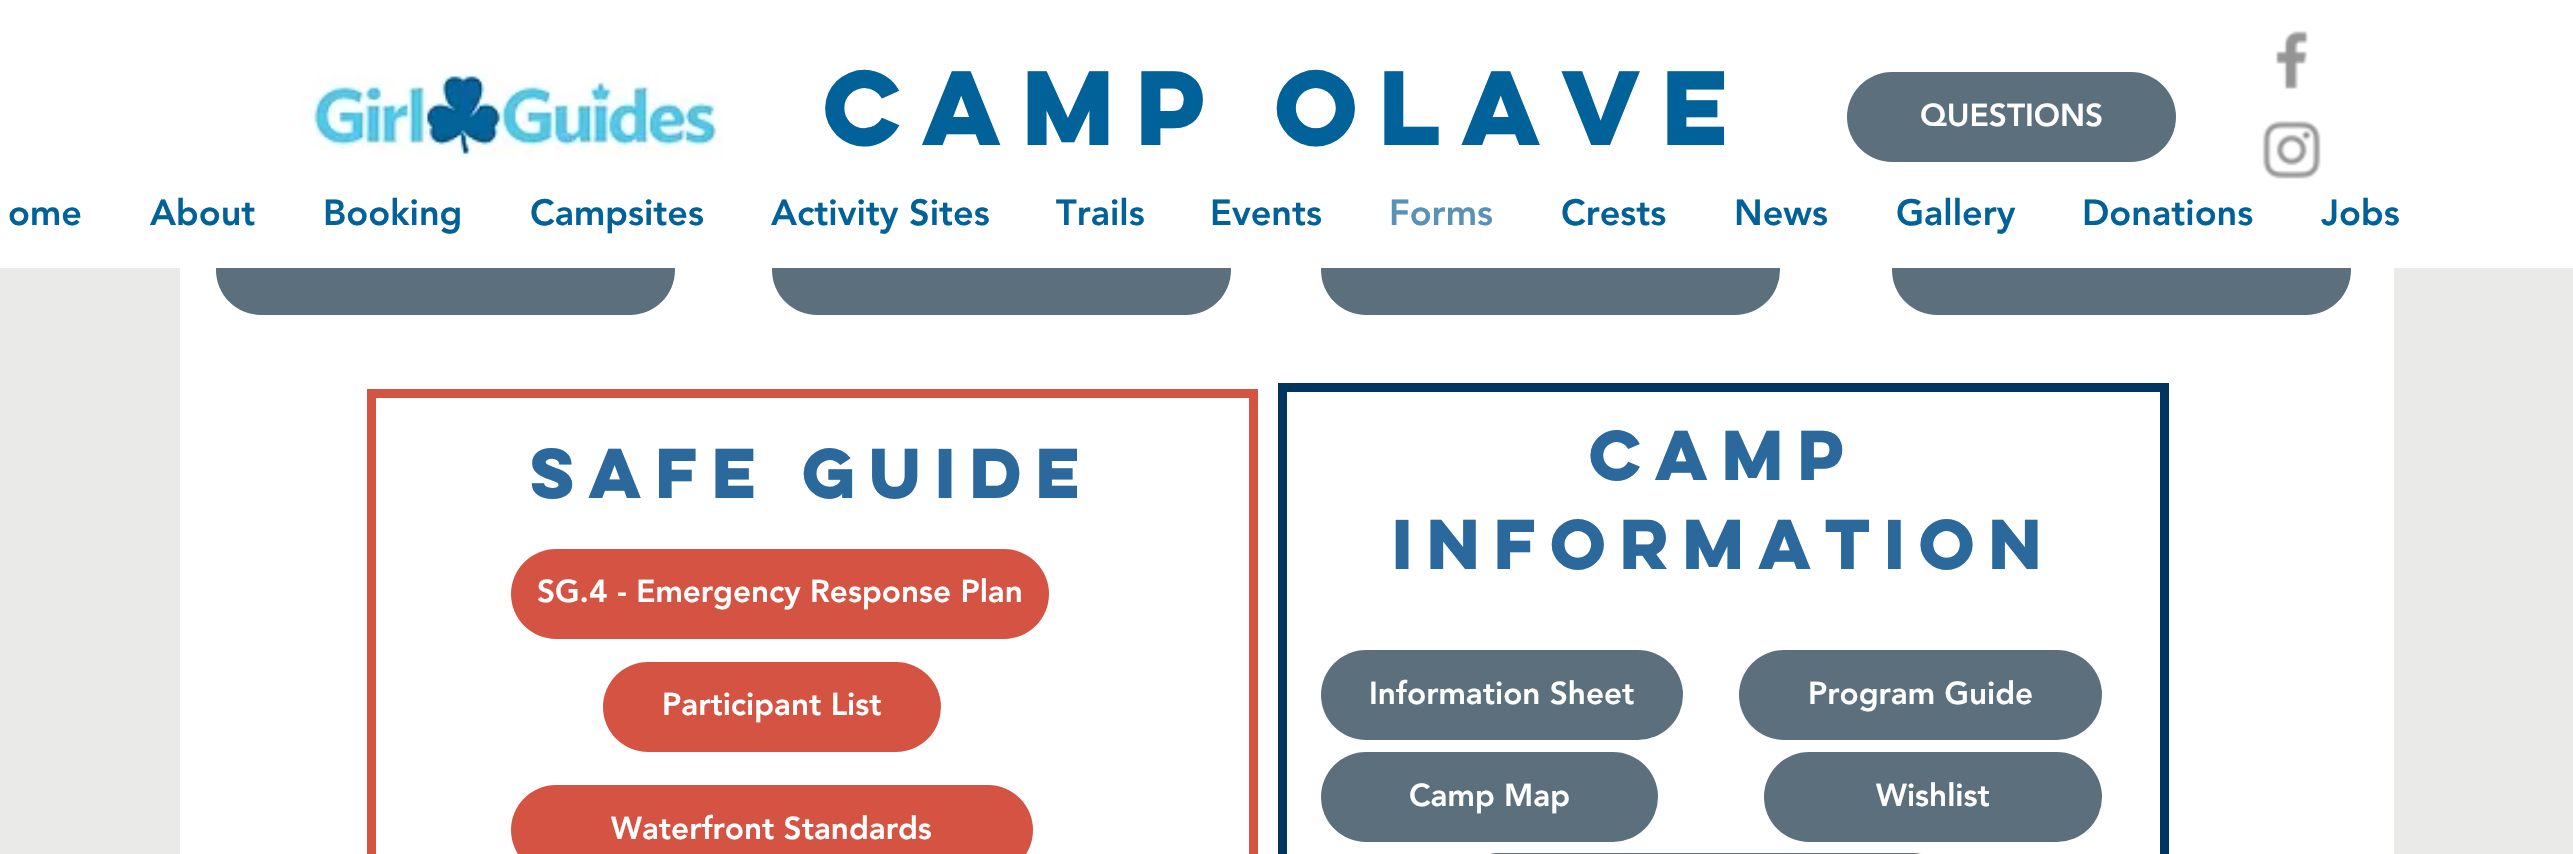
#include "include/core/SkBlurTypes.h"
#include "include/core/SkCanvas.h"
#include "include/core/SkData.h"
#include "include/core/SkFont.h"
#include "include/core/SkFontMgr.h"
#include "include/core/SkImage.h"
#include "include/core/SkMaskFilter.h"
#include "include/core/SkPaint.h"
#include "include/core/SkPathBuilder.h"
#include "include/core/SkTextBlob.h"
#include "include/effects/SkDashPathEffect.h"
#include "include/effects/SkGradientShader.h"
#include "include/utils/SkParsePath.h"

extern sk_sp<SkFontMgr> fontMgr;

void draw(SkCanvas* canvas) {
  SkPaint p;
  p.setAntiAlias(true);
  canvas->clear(SkColorSetRGB(234, 234, 232));
  p.setColor(SK_ColorWHITE);
  canvas->drawRect(SkRect::MakeLTRB(180, 268, 2394, 854), p);
  p.setColor(SkColorSetRGB(91, 112, 124));
  canvas->drawRoundRect(SkRect::MakeLTRB(216, 225, 675, 315), 45, 45, p);
  canvas->drawRoundRect(SkRect::MakeLTRB(772, 225, 1231, 315), 45, 45, p);
  canvas->drawRoundRect(SkRect::MakeLTRB(1321, 225, 1780, 315), 45, 45, p);
  canvas->drawRoundRect(SkRect::MakeLTRB(1892, 225, 2351, 315), 45, 45, p);
  p.setColor(SK_ColorWHITE);
  canvas->drawRect(SkRect::MakeLTRB(0, 0, 2573, 268), p);
  canvas->drawImageRect(SkImages::DeferredFromEncodedData(SkData::MakeFromFileName("images/1.png")), SkRect::MakeLTRB(299, 74, 723, 158), SkSamplingOptions());
  p.setColor(SkColorSetRGB(91, 112, 124));
  canvas->drawRoundRect(SkRect::MakeLTRB(1847, 72, 2176, 162), 45, 45, p);
  canvas->drawImageRect(SkImages::DeferredFromEncodedData(SkData::MakeFromFileName("images/2.png")), SkRect::MakeLTRB(2275, 30, 2309, 90), SkSamplingOptions());
  canvas->drawImageRect(SkImages::DeferredFromEncodedData(SkData::MakeFromFileName("images/3.png")), SkRect::MakeLTRB(2262, 120, 2321, 179), SkSamplingOptions());
  p.setStyle(SkPaint::kStroke_Style);
  p.setStrokeWidth(9);
  p.setColor(SkColorSetRGB(213, 83, 66));
  canvas->drawRect(SkRect::MakeLTRB(371.5f, 393.5f, 1253.5f, 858.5f), p);
  p.setStyle(SkPaint::kFill_Style);
  canvas->drawRoundRect(SkRect::MakeLTRB(511, 549, 1049, 639), 45, 45, p);
  canvas->drawRoundRect(SkRect::MakeLTRB(603, 662, 941, 752), 45, 45, p);
  canvas->drawRoundRect(SkRect::MakeLTRB(511, 785, 1033, 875), 45, 45, p);
  p.setStyle(SkPaint::kStroke_Style);
  p.setColor(SkColorSetRGB(0, 53, 95));
  canvas->drawRect(SkRect::MakeLTRB(1282.5f, 387.5f, 2164.5f, 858.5f), p);
  p.setStyle(SkPaint::kFill_Style);
  p.setColor(SkColorSetRGB(91, 112, 124));
  canvas->drawRoundRect(SkRect::MakeLTRB(1321, 650, 1683, 740), 45, 45, p);
  canvas->drawRoundRect(SkRect::MakeLTRB(1739, 650, 2102, 740), 45, 45, p);
  canvas->drawRoundRect(SkRect::MakeLTRB(1321, 752, 1658, 842), 45, 45, p);
  canvas->drawRoundRect(SkRect::MakeLTRB(1764, 752, 2102, 842), 45, 45, p);
  canvas->drawRoundRect(SkRect::MakeLTRB(1474, 853, 1937, 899), 45, 45, p);
  SkFont font1(fontMgr->matchFamilyStyle("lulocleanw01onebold", SkFontStyle::Bold()), 94.5f);
  font1.setSubpixel(true);
  p.setColor(SkColorSetRGB(1, 98, 153));
  canvas->drawString("camp olave", 823, 145, font1, p);
  SkFont font2(fontMgr->matchFamilyStyle("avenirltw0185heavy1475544", SkFontStyle(900, SkFontStyle::kNormal_Width, SkFontStyle::kUpright_Slant)), 31.5f);
  font2.setSubpixel(true);
  p.setColor(SK_ColorWHITE);
  canvas->drawString("QUESTIONS", 1920, 126, font2, p);
  SkFont font3(fontMgr->matchFamilyStyle("avenirltw0185heavy1475544", SkFontStyle(900, SkFontStyle::kNormal_Width, SkFontStyle::kUpright_Slant)), 36);
  font3.setSubpixel(true);
  p.setColor(SkColorSetRGB(1, 98, 153));
  canvas->drawString("ome", 8, 225, font3, p);
  canvas->drawString("About", 150, 225, font3, p);
  canvas->drawString("Booking", 323, 225, font3, p);
  canvas->drawString("Campsites", 530, 225, font3, p);
  canvas->drawString("Activity Sites", 771, 225, font3, p);
  canvas->drawString("Trails", 1056, 225, font3, p);
  canvas->drawString("Events", 1210, 225, font3, p);
  p.setColor(SkColorSetRGB(89, 146, 178));
  canvas->drawString("Forms", 1389, 225, font3, p);
  p.setColor(SkColorSetRGB(1, 98, 153));
  canvas->drawString("Crests", 1561, 225, font3, p);
  canvas->drawString("News", 1734, 225, font3, p);
  canvas->drawString("Gallery", 1896, 225, font3, p);
  canvas->drawString("Donations", 2082, 225, font3, p);
  canvas->drawString("Jobs", 2321, 225, font3, p);
  SkFont font4(fontMgr->matchFamilyStyle("lulocleanw01onebold", SkFontStyle::Bold()), 63);
  font4.setSubpixel(true);
  p.setColor(SkColorSetRGB(43, 104, 156));
  canvas->drawString("SAFE GUIDE", 530, 498, font4, p);
  p.setColor(SK_ColorWHITE);
  canvas->drawString("SG.4 - Emergency Response Plan", 537, 602, font2, p);
  canvas->drawString("Participant List", 662, 715, font2, p);
  canvas->drawString("Waterfront Standards", 611, 839, font2, p);
  p.setColor(SkColorSetRGB(43, 104, 156));
  canvas->drawString("camp", 1589, 480, font4, p);
  canvas->drawString("information", 1392, 569, font4, p);
  p.setColor(SK_ColorWHITE);
  canvas->drawString("Information Sheet", 1369, 704, font2, p);
  canvas->drawString("Program Guide", 1808, 704, font2, p);
  canvas->drawString("Camp Map", 1409, 806, font2, p);
  canvas->drawString("Wishlist", 1876, 806, font2, p);
}
